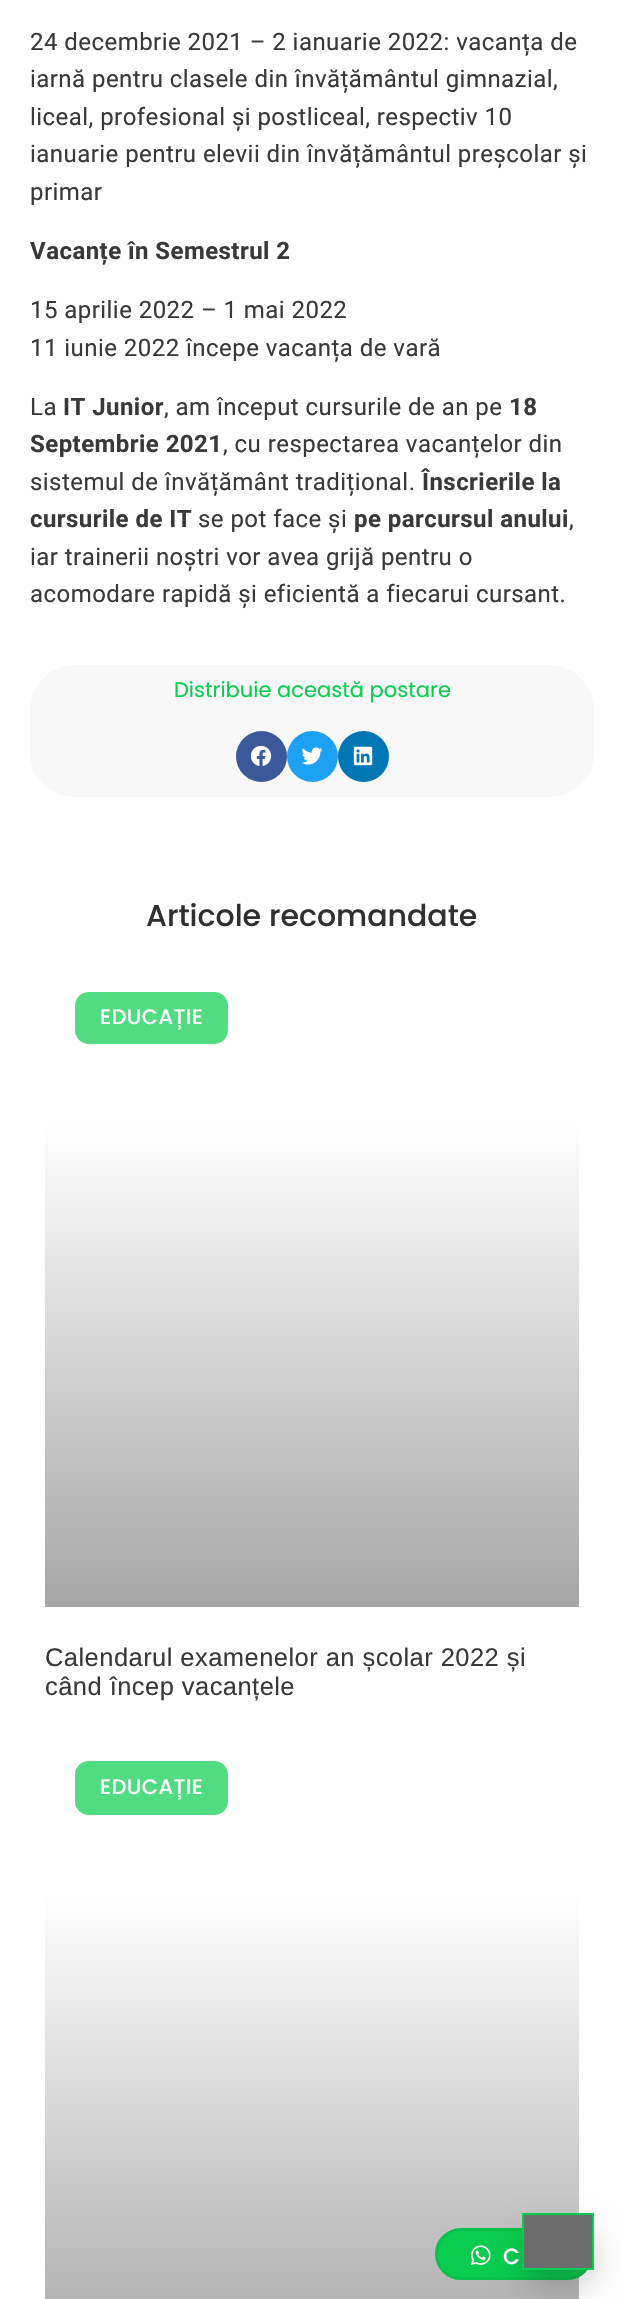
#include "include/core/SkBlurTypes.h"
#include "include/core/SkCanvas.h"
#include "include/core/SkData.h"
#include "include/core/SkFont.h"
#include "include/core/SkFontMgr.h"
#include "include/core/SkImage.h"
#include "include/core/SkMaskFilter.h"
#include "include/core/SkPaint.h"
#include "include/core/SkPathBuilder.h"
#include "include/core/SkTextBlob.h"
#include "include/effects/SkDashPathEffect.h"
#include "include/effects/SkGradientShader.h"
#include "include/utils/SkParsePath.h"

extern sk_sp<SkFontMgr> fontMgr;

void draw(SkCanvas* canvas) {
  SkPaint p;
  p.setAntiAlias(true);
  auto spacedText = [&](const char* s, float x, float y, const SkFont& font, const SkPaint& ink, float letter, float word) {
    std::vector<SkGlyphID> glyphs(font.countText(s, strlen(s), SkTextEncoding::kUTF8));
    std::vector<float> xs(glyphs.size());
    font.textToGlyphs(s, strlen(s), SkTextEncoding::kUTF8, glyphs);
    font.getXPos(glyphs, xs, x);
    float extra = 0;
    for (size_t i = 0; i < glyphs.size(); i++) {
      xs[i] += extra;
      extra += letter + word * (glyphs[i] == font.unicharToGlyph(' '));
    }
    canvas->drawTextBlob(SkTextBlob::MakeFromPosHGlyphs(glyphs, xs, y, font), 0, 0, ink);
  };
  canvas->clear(SK_ColorWHITE);
  p.setColor(SkColorSetRGB(248, 248, 248));
  canvas->drawRoundRect(SkRect::MakeLTRB(30, 665, 594, 797), 45, 45, p);
  p.setColor(SkColorSetRGB(59, 89, 152));
  canvas->drawCircle(261.5f, 756.5f, 25.5f, p);
  canvas->drawImageRect(SkImages::DeferredFromEncodedData(SkData::MakeFromFileName("images/1.png")), SkRect::MakeLTRB(251, 746, 272, 766), SkSamplingOptions());
  p.setColor(SkColorSetRGB(29, 161, 242));
  canvas->drawCircle(312.5f, 756.5f, 25.5f, p);
  canvas->drawImageRect(SkImages::DeferredFromEncodedData(SkData::MakeFromFileName("images/2.png")), SkRect::MakeLTRB(302, 747, 323, 765), SkSamplingOptions());
  p.setColor(SkColorSetRGB(0, 119, 181));
  canvas->drawCircle(363.5f, 756.5f, 25.5f, p);
  canvas->drawImageRect(SkImages::DeferredFromEncodedData(SkData::MakeFromFileName("images/3.png")), SkRect::MakeLTRB(353, 746, 373, 766), SkSamplingOptions());
  {
    const SkColor colors[] = {SkColorSetRGB(166, 166, 166), SK_ColorWHITE};
    const float stops[] = {0, 0.75f};
    const SkPoint ends[] = {{312, 1607}, {312, 962}};
    p.setShader(SkGradientShader::MakeLinear(ends, colors, stops, 2, SkTileMode::kClamp));
    p.setAlpha(255);
  }
  canvas->drawPath(SkPathBuilder().moveTo(54, 962).lineTo(570, 962).cubicTo(575, 962, 579, 966, 579, 971).lineTo(579, 1607).lineTo(45, 1607).lineTo(45, 971).cubicTo(45, 966, 49, 962, 54, 962).close().detach(), p);
  p.setShader(nullptr);
  p.setColor(SkColorSetRGB(81, 219, 130));
  canvas->drawRoundRect(SkRect::MakeLTRB(75, 992, 228, 1044), 14, 14, p);
  {
    const SkColor colors[] = {SkColorSetRGB(166, 166, 166), SK_ColorWHITE};
    const float stops[] = {0, 0.75f};
    const SkPoint ends[] = {{312, 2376}, {312, 1731}};
    p.setShader(SkGradientShader::MakeLinear(ends, colors, stops, 2, SkTileMode::kClamp));
    p.setAlpha(255);
  }
  canvas->drawPath(SkPathBuilder().moveTo(54, 1731).lineTo(570, 1731).cubicTo(575, 1731, 579, 1735, 579, 1740).lineTo(579, 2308).lineTo(45, 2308).lineTo(45, 1740).cubicTo(45, 1735, 49, 1731, 54, 1731).close().detach(), p);
  p.setShader(nullptr);
  p.setColor(SkColorSetRGB(81, 219, 130));
  canvas->drawRoundRect(SkRect::MakeLTRB(75, 1761, 228, 1815), 14, 14, p);
  p.setColor(SkColorSetRGB(10, 204, 79));
  canvas->drawRoundRect(SkRect::MakeLTRB(436.5f, 2229.5f, 591.5f, 2278.5f), 24.5f, 24.5f, p);
  p.setStyle(SkPaint::kStroke_Style);
  p.setStrokeWidth(3);
  p.setColor(SkColorSetRGB(10, 193, 75));
  canvas->drawRoundRect(SkRect::MakeLTRB(436.5f, 2229.5f, 591.5f, 2278.5f), 24.5f, 24.5f, p);
  canvas->drawImageRect(SkImages::DeferredFromEncodedData(SkData::MakeFromFileName("images/4.png")), SkRect::MakeLTRB(471, 2245, 491, 2265), SkSamplingOptions());
  p.setStyle(SkPaint::kFill_Style);
  p.setColor(SkColorSetARGB(77, 0, 0, 0));
  p.setMaskFilter(SkMaskFilter::MakeBlur(kNormal_SkBlurStyle, 18));
  canvas->drawRect(SkRect::MakeLTRB(530, 2238, 587, 2280), p);
  p.setMaskFilter(nullptr);
  p.setColor(SkColorSetRGB(108, 108, 108));
  canvas->drawRect(SkRect::MakeLTRB(523, 2214, 593, 2269), p);
  p.setStyle(SkPaint::kStroke_Style);
  p.setStrokeWidth(2);
  p.setColor(SkColorSetRGB(10, 204, 79));
  canvas->drawRect(SkRect::MakeLTRB(523, 2214, 593, 2269), p);
  SkFont font1(fontMgr->matchFamilyStyle("Roboto", SkFontStyle::Normal()), 24);
  font1.setSubpixel(true);
  p.setStyle(SkPaint::kFill_Style);
  p.setColor(SkColorSetRGB(57, 57, 57));
  spacedText("24 decembrie 2021 – 2 ianuarie 2022: vacanța de", 30, 50, font1, p, 0.45f, 0);
  spacedText("iarnă pentru clasele din învățământul gimnazial,", 30, 87, font1, p, 0.45f, 0);
  spacedText("liceal, profesional și postliceal, respectiv 10", 30, 125, font1, p, 0.45f, 0);
  spacedText("ianuarie pentru elevii din învățământul preșcolar și", 30, 162, font1, p, 0.45f, 0);
  spacedText("primar", 30, 200, font1, p, 0.45f, 0);
  SkFont font2(fontMgr->matchFamilyStyle("Roboto", SkFontStyle::Bold()), 24);
  font2.setSubpixel(true);
  spacedText("Vacanțe în Semestrul 2", 30, 259, font2, p, 0.45f, 0);
  spacedText("15 aprilie 2022 – 1 mai 2022", 30, 318, font1, p, 0.45f, 0);
  spacedText("11 iunie 2022 începe vacanța de vară", 30, 356, font1, p, 0.45f, 0);
  spacedText("La", 30, 415, font1, p, 0.45f, 0);
  spacedText("IT Junior", 63, 415, font2, p, 0.45f, 0);
  spacedText(", am început cursurile de an pe", 164, 415, font1, p, 0.45f, 0);
  spacedText("18", 509, 415, font2, p, 0.45f, 0);
  spacedText("Septembrie 2021", 30, 452, font2, p, 0.45f, 0);
  spacedText(", cu respectarea vacanțelor din", 223, 452, font1, p, 0.45f, 0);
  spacedText("sistemul de învățământ tradițional.", 30, 490, font1, p, 0.45f, 0);
  spacedText("Înscrierile la", 422, 490, font2, p, 0.45f, 0);
  spacedText("cursurile de IT", 30, 527, font2, p, 0.45f, 0);
  spacedText("se pot face și", 198, 527, font1, p, 0.45f, 0);
  spacedText("pe parcursul anului", 354, 527, font2, p, 0.45f, 0);
  spacedText(",", 569, 527, font1, p, 0.45f, 0);
  spacedText("iar trainerii noștri vor avea grijă pentru o", 30, 565, font1, p, 0.45f, 0);
  spacedText("acomodare rapidă și eficientă a fiecarui cursant.", 30, 602, font1, p, 0.45f, 0);
  SkFont font3(fontMgr->matchFamilyStyle("Poppins", SkFontStyle::Normal()), 21);
  font3.setSubpixel(true);
  p.setColor(SkColorSetRGB(10, 204, 79));
  canvas->drawString("Distribuie această postare", 174, 697, font3, p);
  SkFont font4(fontMgr->matchFamilyStyle("Poppins", SkFontStyle(500, SkFontStyle::kNormal_Width, SkFontStyle::kUpright_Slant)), 30);
  font4.setSubpixel(true);
  p.setColor(SkColorSetRGB(48, 48, 48));
  canvas->drawString("Articole recomandate", 146, 926, font4, p);
  SkFont font5(fontMgr->matchFamilyStyle("Poppins", SkFontStyle(500, SkFontStyle::kNormal_Width, SkFontStyle::kUpright_Slant)), 21);
  font5.setSubpixel(true);
  p.setColor(SK_ColorWHITE);
  spacedText("EDUCAȚIE", 100, 1024, font5, p, 0.45f, 0);
  SkFont font6(fontMgr->matchFamilyStyle("Liberation Sans", SkFontStyle::Normal()), 25.5f);
  font6.setSubpixel(true);
  p.setColor(SkColorSetRGB(57, 57, 57));
  spacedText("Calendarul examenelor an școlar 2022 și", 45, 1666, font6, p, 0.45f, 0);
  spacedText("când încep vacanțele", 45, 1695, font6, p, 0.45f, 0);
  p.setColor(SK_ColorWHITE);
  spacedText("EDUCAȚIE", 100, 1794, font5, p, 0.45f, 0);
  SkFont font7(fontMgr->matchFamilyStyle("Poppins", SkFontStyle(500, SkFontStyle::kNormal_Width, SkFontStyle::kUpright_Slant)), 22);
  font7.setSubpixel(true);
  canvas->drawString("C", 503, 2264, font7, p);
}
